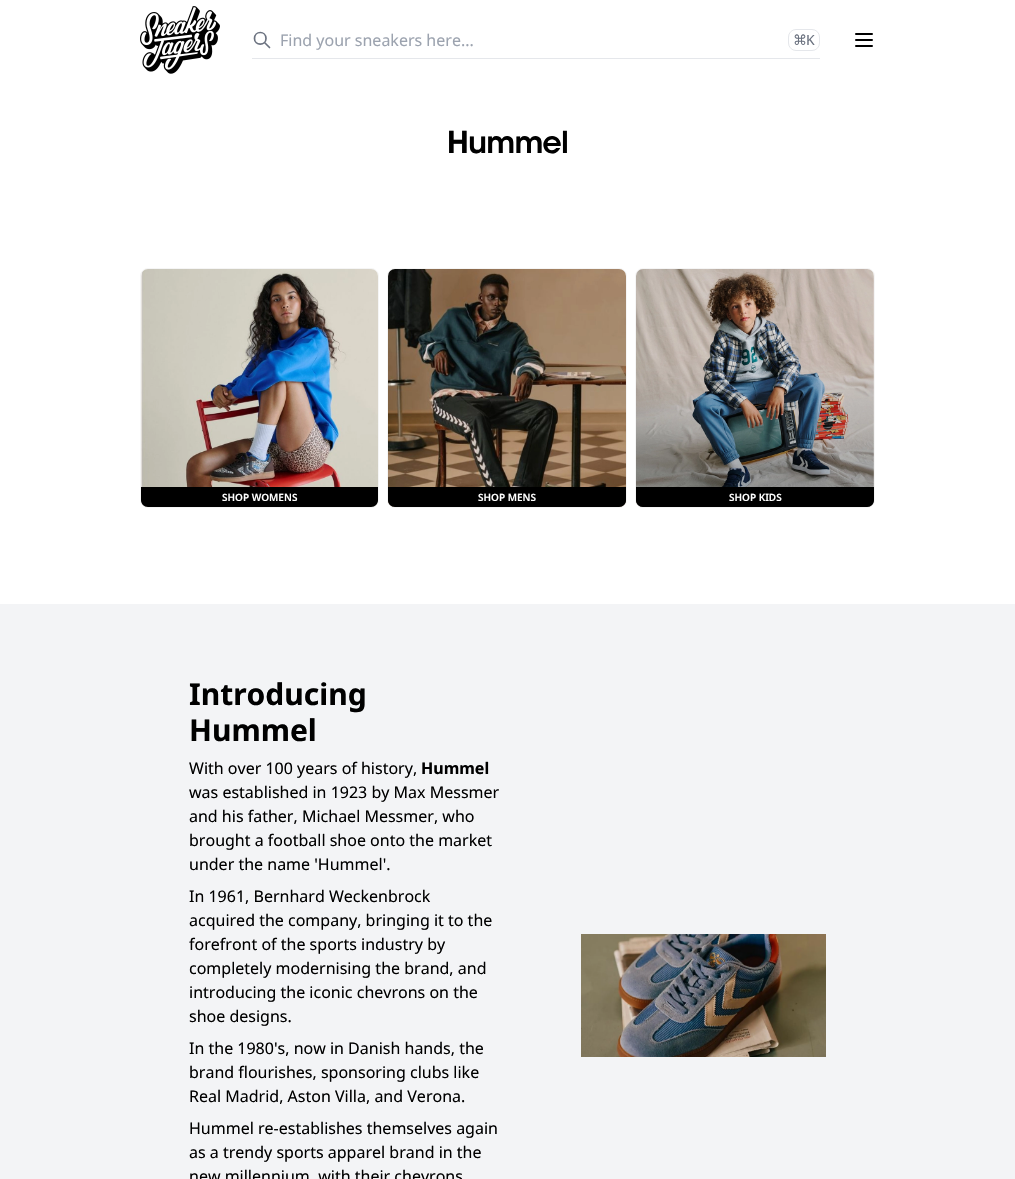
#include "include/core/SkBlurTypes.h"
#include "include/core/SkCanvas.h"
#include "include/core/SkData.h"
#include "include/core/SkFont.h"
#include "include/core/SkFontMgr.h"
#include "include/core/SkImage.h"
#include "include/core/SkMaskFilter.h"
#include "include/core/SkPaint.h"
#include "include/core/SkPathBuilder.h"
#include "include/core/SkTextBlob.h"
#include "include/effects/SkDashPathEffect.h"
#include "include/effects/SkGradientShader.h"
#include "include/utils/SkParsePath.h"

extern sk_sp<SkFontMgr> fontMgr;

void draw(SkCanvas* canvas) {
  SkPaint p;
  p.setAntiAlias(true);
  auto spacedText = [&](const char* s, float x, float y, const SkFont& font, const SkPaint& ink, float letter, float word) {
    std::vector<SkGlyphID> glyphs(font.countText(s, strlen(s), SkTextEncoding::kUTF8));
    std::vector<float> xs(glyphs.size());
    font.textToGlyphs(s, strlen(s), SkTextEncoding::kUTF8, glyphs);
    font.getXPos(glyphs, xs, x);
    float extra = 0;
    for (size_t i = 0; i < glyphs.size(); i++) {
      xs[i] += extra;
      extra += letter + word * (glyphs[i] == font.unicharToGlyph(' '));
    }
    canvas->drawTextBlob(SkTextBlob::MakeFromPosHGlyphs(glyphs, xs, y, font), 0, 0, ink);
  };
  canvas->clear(SK_ColorWHITE);
  canvas->drawImageRect(SkImages::DeferredFromEncodedData(SkData::MakeFromFileName("images/1.png")), SkRect::MakeLTRB(140, 6, 220, 74), SkSamplingOptions());
  p.setColor(SkColorSetRGB(229, 231, 235));
  canvas->drawRect(SkRect::MakeLTRB(252, 58, 820, 59), p);
  p.setStyle(SkPaint::kStroke_Style);
  p.setStrokeWidth(1.7f);
  p.setStrokeCap(SkPaint::kRound_Cap);
  p.setStrokeJoin(SkPaint::kRound_Join);
  p.setColor(SkColorSetRGB(107, 114, 128));
  canvas->drawPath(SkPathBuilder().moveTo(269.5f, 47.5f).lineTo(264.5f, 42.5f).moveTo(266, 38.5f).cubicTo(266, 46, 254.5f, 46, 254.5f, 38.5f).cubicTo(254.5f, 30.5f, 266, 30.5f, 266, 38.5f).close().detach(), p);
  p.setStrokeWidth(1);
  p.setStrokeCap(SkPaint::kButt_Cap);
  p.setStrokeJoin(SkPaint::kMiter_Join);
  p.setColor(SkColorSetRGB(229, 231, 235));
  canvas->drawRoundRect(SkRect::MakeLTRB(788.5f, 29.5f, 819.5f, 50.5f), 7.5f, 7.5f, p);
  p.setStrokeWidth(2);
  p.setStrokeCap(SkPaint::kRound_Cap);
  p.setStrokeJoin(SkPaint::kRound_Join);
  p.setColor(SK_ColorBLACK);
  canvas->drawPath(SkPathBuilder().moveTo(856, 34).lineTo(872, 34).moveTo(856, 40).lineTo(872, 40).moveTo(856, 46).lineTo(872, 46).detach(), p);
  p.setStrokeWidth(1);
  p.setStrokeCap(SkPaint::kButt_Cap);
  p.setStrokeJoin(SkPaint::kMiter_Join);
  p.setColor(SkColorSetRGB(245, 245, 245));
  canvas->drawRoundRect(SkRect::MakeLTRB(140.5f, 268.5f, 378.5f, 507.5f), 7.5f, 7.5f, p);
  canvas->drawImageRect(SkImages::DeferredFromEncodedData(SkData::MakeFromFileName("images/2.png")), SkRect::MakeLTRB(141, 269, 378, 507), SkSamplingOptions());
  p.setStyle(SkPaint::kFill_Style);
  p.setColor(SK_ColorBLACK);
  canvas->drawPath(SkPathBuilder().moveTo(141, 487).lineTo(378, 487).lineTo(378, 500).cubicTo(378, 504, 375, 507, 371, 507).lineTo(148, 507).cubicTo(144, 507, 141, 504, 141, 500).close().detach(), p);
  p.setStyle(SkPaint::kStroke_Style);
  p.setColor(SkColorSetRGB(245, 245, 245));
  canvas->drawRoundRect(SkRect::MakeLTRB(387.5f, 268.5f, 626.5f, 507.5f), 7.5f, 7.5f, p);
  canvas->drawImageRect(SkImages::DeferredFromEncodedData(SkData::MakeFromFileName("images/3.png")), SkRect::MakeLTRB(388, 269, 626, 507), SkSamplingOptions());
  p.setStyle(SkPaint::kFill_Style);
  p.setColor(SK_ColorBLACK);
  canvas->drawPath(SkPathBuilder().moveTo(388, 487).lineTo(626, 487).lineTo(626, 500).cubicTo(626, 504, 623, 507, 619, 507).lineTo(395, 507).cubicTo(391, 507, 388, 504, 388, 500).close().detach(), p);
  p.setStyle(SkPaint::kStroke_Style);
  p.setColor(SkColorSetRGB(245, 245, 245));
  canvas->drawRoundRect(SkRect::MakeLTRB(635.5f, 268.5f, 874.5f, 507.5f), 7.5f, 7.5f, p);
  canvas->drawImageRect(SkImages::DeferredFromEncodedData(SkData::MakeFromFileName("images/4.png")), SkRect::MakeLTRB(636, 269, 874, 507), SkSamplingOptions());
  p.setStyle(SkPaint::kFill_Style);
  p.setColor(SK_ColorBLACK);
  canvas->drawPath(SkPathBuilder().moveTo(636, 487).lineTo(874, 487).lineTo(874, 500).cubicTo(874, 504, 871, 507, 867, 507).lineTo(643, 507).cubicTo(639, 507, 636, 504, 636, 500).close().detach(), p);
  p.setColor(SkColorSetRGB(243, 244, 246));
  canvas->drawRect(SkRect::MakeLTRB(0, 604, 1015, 1179), p);
  canvas->drawImageRect(SkImages::DeferredFromEncodedData(SkData::MakeFromFileName("images/5.png")), SkRect::MakeLTRB(581, 934, 826, 1057), SkSamplingOptions());
  SkFont font1(fontMgr->matchFamilyStyle("Noto Sans", SkFontStyle::Normal()), 16);
  font1.setSubpixel(true);
  p.setColor(SkColorSetRGB(156, 163, 175));
  canvas->drawString("Find your sneakers here...", 280, 46, font1, p);
  SkFont font2(fontMgr->matchFamilyStyle("DejaVu Sans", SkFontStyle::Normal()), 14);
  font2.setSubpixel(true);
  p.setColor(SkColorSetRGB(107, 114, 128));
  canvas->drawString("⌘", 793, 45, font2, p);
  SkFont font3(fontMgr->matchFamilyStyle("Noto Sans", SkFontStyle::Normal()), 14);
  font3.setSubpixel(true);
  canvas->drawString("K", 806, 45, font3, p);
  SkFont font4(fontMgr->matchFamilyStyle("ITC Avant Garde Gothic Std", SkFontStyle(600, SkFontStyle::kNormal_Width, SkFontStyle::kUpright_Slant)), 30);
  font4.setSubpixel(true);
  p.setColor(SK_ColorBLACK);
  spacedText("Hummel", 447, 153, font4, p, -0.75f, 0);
  SkFont font5(fontMgr->matchFamilyStyle("Noto Sans", SkFontStyle(600, SkFontStyle::kNormal_Width, SkFontStyle::kUpright_Slant)), 10);
  font5.setSubpixel(true);
  p.setColor(SK_ColorWHITE);
  canvas->drawString("SHOP WOMENS", 222, 501, font5, p);
  canvas->drawString("SHOP MENS", 478, 501, font5, p);
  canvas->drawString("SHOP KIDS", 729, 501, font5, p);
  SkFont font6(fontMgr->matchFamilyStyle("Noto Sans", SkFontStyle::Bold()), 30);
  font6.setSubpixel(true);
  p.setColor(SK_ColorBLACK);
  canvas->drawString("Introducing", 189, 705, font6, p);
  canvas->drawString("Hummel", 189, 741, font6, p);
  canvas->drawString("With over 100 years of history,", 189, 774, font1, p);
  SkFont font7(fontMgr->matchFamilyStyle("Noto Sans", SkFontStyle::Bold()), 16);
  font7.setSubpixel(true);
  canvas->drawString("Hummel", 421, 774, font7, p);
  canvas->drawString("was established in 1923 by Max Messmer", 189, 798, font1, p);
  canvas->drawString("and his father, Michael Messmer, who", 189, 822, font1, p);
  canvas->drawString("brought a football shoe onto the market", 189, 846, font1, p);
  canvas->drawString("under the name 'Hummel'.", 189, 870, font1, p);
  canvas->drawString("In 1961, Bernhard Weckenbrock", 189, 902, font1, p);
  canvas->drawString("acquired the company, bringing it to the", 189, 926, font1, p);
  canvas->drawString("forefront of the sports industry by", 189, 950, font1, p);
  canvas->drawString("completely modernising the brand, and", 189, 974, font1, p);
  canvas->drawString("introducing the iconic chevrons on the", 189, 998, font1, p);
  canvas->drawString("shoe designs.", 189, 1022, font1, p);
  canvas->drawString("In the 1980's, now in Danish hands, the", 189, 1054, font1, p);
  canvas->drawString("brand flourishes, sponsoring clubs like", 189, 1078, font1, p);
  canvas->drawString("Real Madrid, Aston Villa, and Verona.", 189, 1102, font1, p);
  canvas->drawString("Hummel re-establishes themselves again", 189, 1134, font1, p);
  canvas->drawString("as a trendy sports apparel brand in the", 189, 1158, font1, p);
  canvas->drawString("new millennium, with their chevrons", 189, 1182, font1, p);
}
